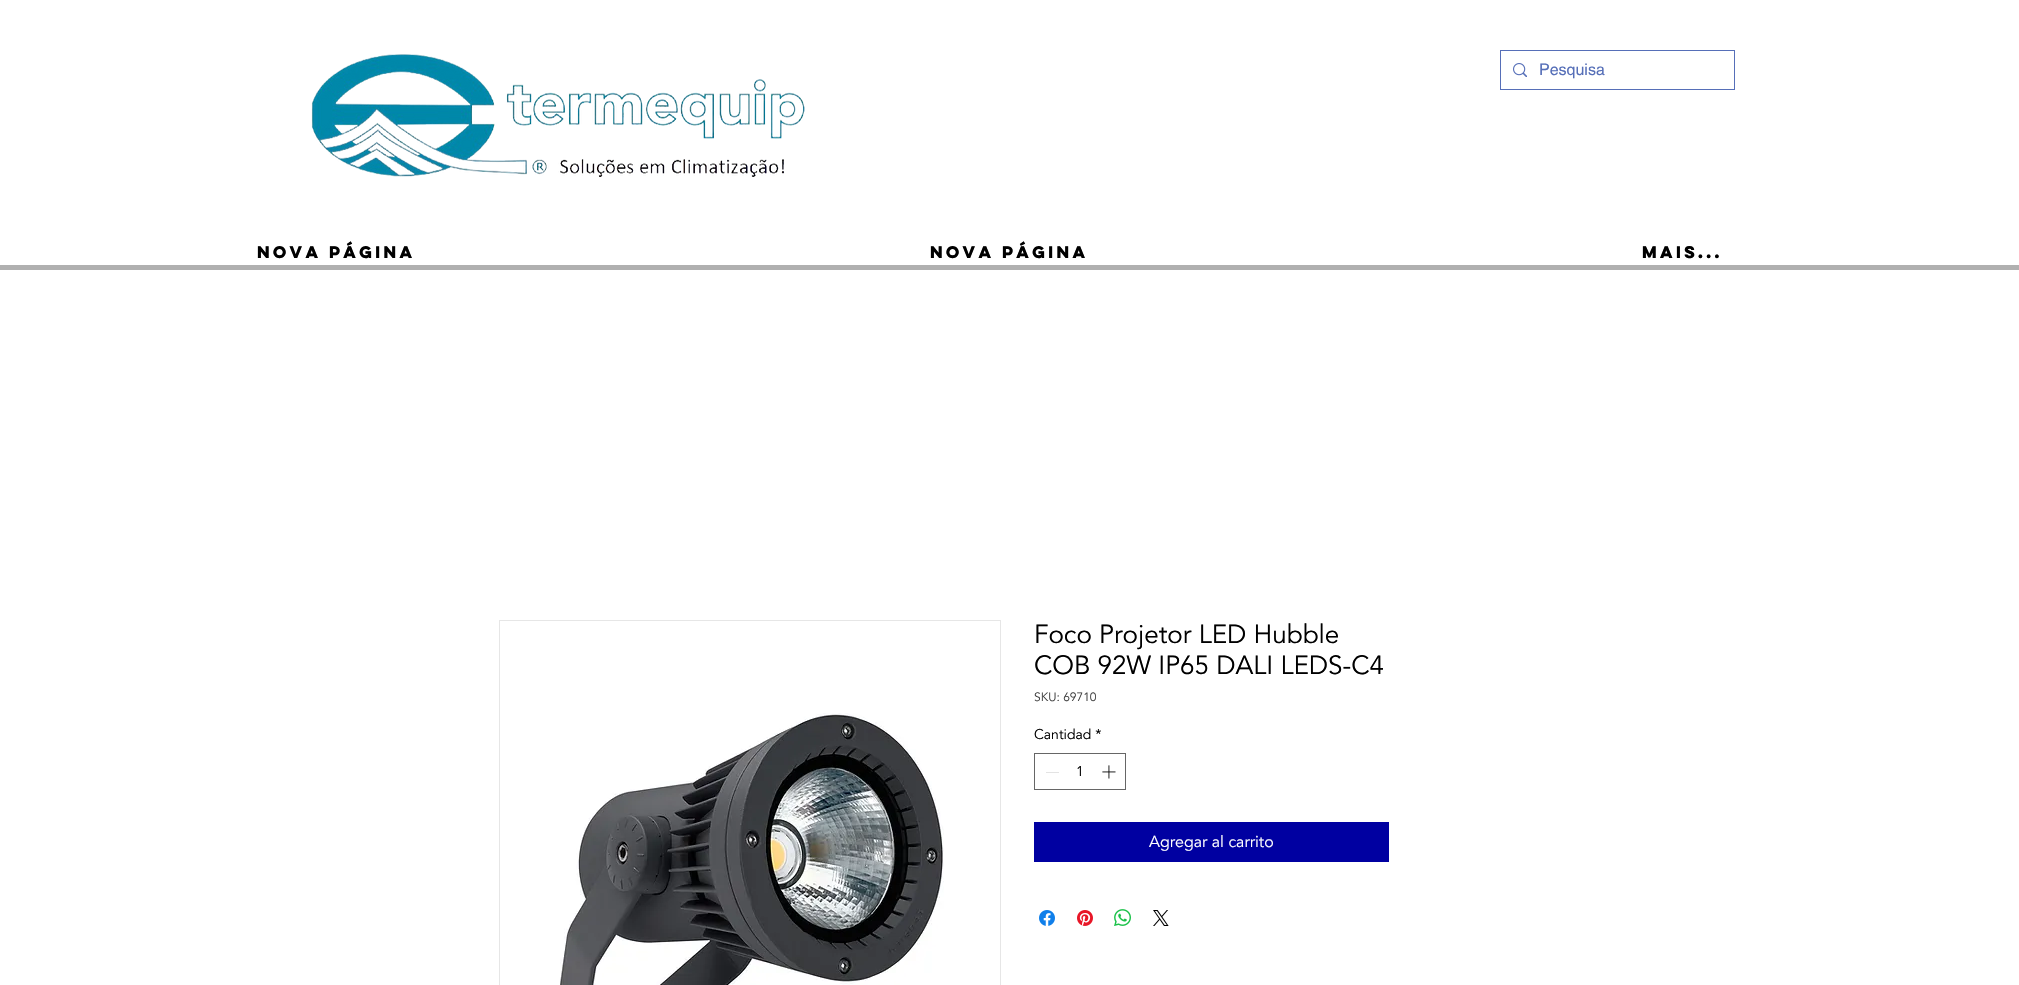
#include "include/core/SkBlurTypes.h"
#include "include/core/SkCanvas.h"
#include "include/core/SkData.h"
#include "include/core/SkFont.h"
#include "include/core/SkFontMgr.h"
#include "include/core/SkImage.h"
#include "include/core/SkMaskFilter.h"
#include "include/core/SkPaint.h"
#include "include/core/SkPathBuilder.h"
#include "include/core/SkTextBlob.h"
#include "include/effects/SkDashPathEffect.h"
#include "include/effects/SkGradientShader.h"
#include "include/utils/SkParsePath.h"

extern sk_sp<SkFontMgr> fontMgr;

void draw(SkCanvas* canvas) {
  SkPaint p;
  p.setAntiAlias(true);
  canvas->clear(SK_ColorWHITE);
  canvas->drawImageRect(SkImages::DeferredFromEncodedData(SkData::MakeFromFileName("images/1.png")), SkRect::MakeLTRB(311, 54, 805, 177), SkSamplingOptions());
  p.setStyle(SkPaint::kStroke_Style);
  p.setStrokeWidth(1);
  p.setColor(SkColorSetRGB(86, 111, 184));
  canvas->drawRect(SkRect::MakeLTRB(1500.5f, 50.5f, 1734.5f, 89.5f), p);
  canvas->drawImageRect(SkImages::DeferredFromEncodedData(SkData::MakeFromFileName("images/2.png")), SkRect::MakeLTRB(1513, 63, 1527, 77), SkSamplingOptions());
  p.setStyle(SkPaint::kFill_Style);
  p.setColor(SkColorSetRGB(176, 176, 176));
  canvas->drawRect(SkRect::MakeLTRB(0, 265, 2019, 270), p);
  p.setStyle(SkPaint::kStroke_Style);
  p.setColor(SkColorSetRGB(230, 230, 230));
  canvas->drawRect(SkRect::MakeLTRB(499.5f, 620.5f, 1000.5f, 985.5f), p);
  canvas->drawImageRect(SkImages::DeferredFromEncodedData(SkData::MakeFromFileName("images/3.png")), SkRect::MakeLTRB(560, 713, 944, 985), SkSamplingOptions());
  p.setColor(SkColorSetRGB(102, 102, 102));
  canvas->drawRect(SkRect::MakeLTRB(1034.5f, 753.5f, 1125.5f, 789.5f), p);
  p.setStyle(SkPaint::kFill_Style);
  p.setColor(SkColorSetRGB(227, 227, 227));
  canvas->drawRect(SkRect::MakeLTRB(1046, 772, 1059, 773), p);
  canvas->drawImageRect(SkImages::DeferredFromEncodedData(SkData::MakeFromFileName("images/4.png")), SkRect::MakeLTRB(1102, 765, 1116, 779), SkSamplingOptions());
  p.setColor(SkColorSetRGB(0, 0, 161));
  canvas->drawRect(SkRect::MakeLTRB(1034, 822, 1389, 862), p);
  canvas->drawImageRect(SkImages::DeferredFromEncodedData(SkData::MakeFromFileName("images/5.png")), SkRect::MakeLTRB(1039, 910, 1055, 926), SkSamplingOptions());
  canvas->drawImageRect(SkImages::DeferredFromEncodedData(SkData::MakeFromFileName("images/6.png")), SkRect::MakeLTRB(1077, 910, 1093, 926), SkSamplingOptions());
  canvas->drawImageRect(SkImages::DeferredFromEncodedData(SkData::MakeFromFileName("images/7.png")), SkRect::MakeLTRB(1114, 909, 1131, 926), SkSamplingOptions());
  canvas->drawImageRect(SkImages::DeferredFromEncodedData(SkData::MakeFromFileName("images/8.png")), SkRect::MakeLTRB(1153, 910, 1169, 926), SkSamplingOptions());
  SkFont font1(fontMgr->matchFamilyStyle("helvetica", SkFontStyle::Normal()), 16);
  font1.setSubpixel(true);
  p.setColor(SkColorSetRGB(86, 111, 184));
  canvas->drawString("Pesquisa", 1539, 75, font1, p);
  SkFont font2(fontMgr->matchFamilyStyle("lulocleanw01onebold", SkFontStyle::Bold()), 15);
  font2.setSubpixel(true);
  p.setColor(SK_ColorBLACK);
  canvas->drawString("Nova página", 257, 258, font2, p);
  canvas->drawString("Nova página", 930, 258, font2, p);
  canvas->drawString("Mais...", 1642, 258, font2, p);
  SkFont font3(fontMgr->matchFamilyStyle("Avenir", SkFontStyle::Normal()), 26);
  font3.setSubpixel(true);
  canvas->drawString("Foco Projetor LED Hubble", 1034, 643, font3, p);
  canvas->drawString("COB 92W IP65 DALI LEDS-C4", 1034, 674, font3, p);
  SkFont font4(fontMgr->matchFamilyStyle("Avenir", SkFontStyle::Normal()), 12);
  font4.setSubpixel(true);
  p.setColor(SkColorSetRGB(65, 65, 65));
  canvas->drawString("SKU: 69710", 1034, 701, font4, p);
  SkFont font5(fontMgr->matchFamilyStyle("Avenir", SkFontStyle::Normal()), 14);
  font5.setSubpixel(true);
  p.setColor(SK_ColorBLACK);
  canvas->drawString("Cantidad *", 1034, 739, font5, p);
  canvas->drawString("1", 1076, 776, font5, p);
  SkFont font6(fontMgr->matchFamilyStyle("Avenir", SkFontStyle::Normal()), 16);
  font6.setSubpixel(true);
  p.setColor(SK_ColorWHITE);
  canvas->drawString("Agregar al carrito", 1149, 847, font6, p);
}
